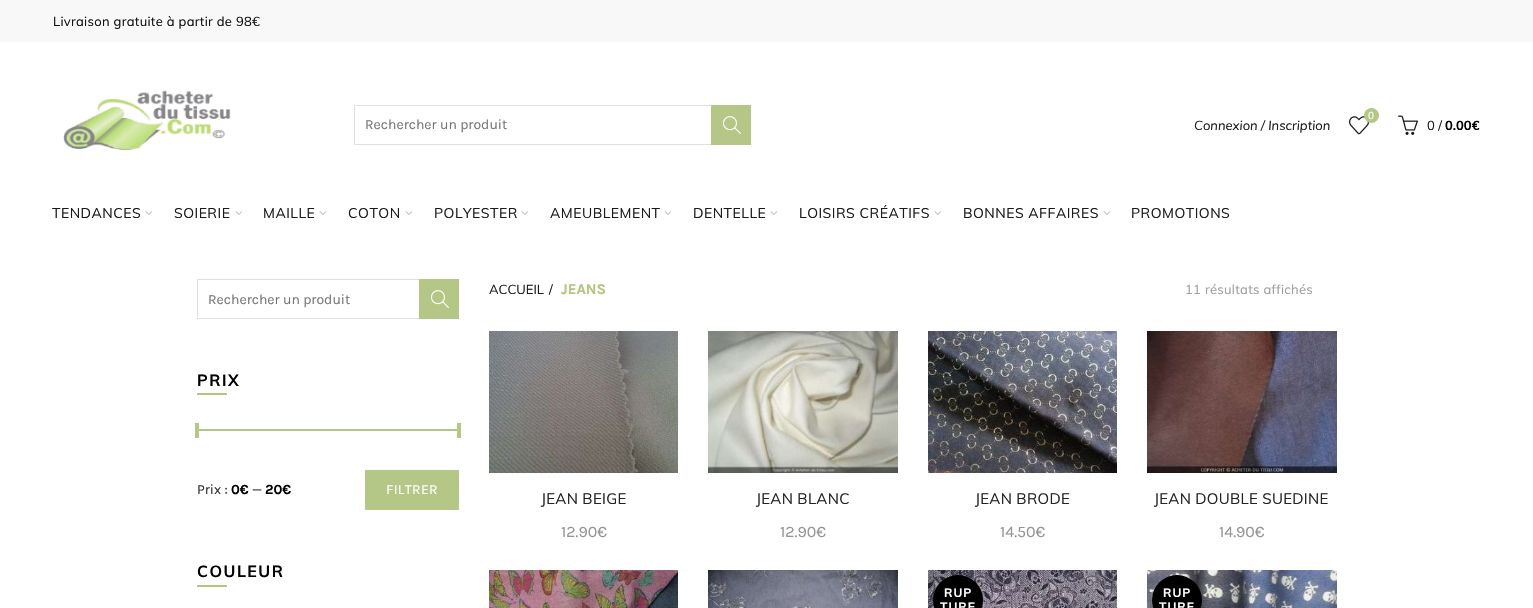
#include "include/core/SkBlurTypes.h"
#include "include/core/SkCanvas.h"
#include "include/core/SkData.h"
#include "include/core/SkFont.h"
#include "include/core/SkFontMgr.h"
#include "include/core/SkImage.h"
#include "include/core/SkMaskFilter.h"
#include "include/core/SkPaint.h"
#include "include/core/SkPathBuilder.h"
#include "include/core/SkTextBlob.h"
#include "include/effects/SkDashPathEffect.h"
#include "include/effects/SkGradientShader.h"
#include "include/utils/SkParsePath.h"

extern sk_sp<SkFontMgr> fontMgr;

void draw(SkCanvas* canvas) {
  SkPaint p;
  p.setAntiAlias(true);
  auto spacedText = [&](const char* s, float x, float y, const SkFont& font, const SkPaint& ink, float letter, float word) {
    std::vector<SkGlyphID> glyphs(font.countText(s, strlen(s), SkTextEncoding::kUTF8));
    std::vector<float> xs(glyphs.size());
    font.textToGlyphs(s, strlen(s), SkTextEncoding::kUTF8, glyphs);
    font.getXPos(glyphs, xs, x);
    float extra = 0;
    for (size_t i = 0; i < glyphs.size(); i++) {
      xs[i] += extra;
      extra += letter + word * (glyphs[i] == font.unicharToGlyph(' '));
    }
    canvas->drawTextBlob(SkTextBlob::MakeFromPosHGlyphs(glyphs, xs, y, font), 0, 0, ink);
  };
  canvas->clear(SK_ColorWHITE);
  p.setColor(SkColorSetRGB(248, 248, 248));
  canvas->drawRect(SkRect::MakeLTRB(0, 0, 1533, 42), p);
  canvas->drawImageRect(SkImages::DeferredFromEncodedData(SkData::MakeFromFileName("images/1.png")), SkRect::MakeLTRB(63, 90, 231, 150), SkSamplingOptions());
  p.setStyle(SkPaint::kStroke_Style);
  p.setStrokeWidth(1);
  p.setColor(SkColorSetRGB(224, 224, 224));
  canvas->drawRect(SkRect::MakeLTRB(354.5f, 105.5f, 750.5f, 144.5f), p);
  p.setStyle(SkPaint::kFill_Style);
  p.setColor(SkColorSetRGB(180, 199, 134));
  canvas->drawRect(SkRect::MakeLTRB(711, 105, 751, 145), p);
  canvas->drawImageRect(SkImages::DeferredFromEncodedData(SkData::MakeFromFileName("images/2.png")), SkRect::MakeLTRB(723, 116, 741, 135), SkSamplingOptions());
  canvas->drawImageRect(SkImages::DeferredFromEncodedData(SkData::MakeFromFileName("images/3.png")), SkRect::MakeLTRB(1349, 116, 1369, 135), SkSamplingOptions());
  p.setColor(SkColorSetRGB(180, 200, 134));
  canvas->drawCircle(1371.5f, 115.5f, 7.5f, p);
  canvas->drawImageRect(SkImages::DeferredFromEncodedData(SkData::MakeFromFileName("images/4.png")), SkRect::MakeLTRB(1398, 115, 1418, 135), SkSamplingOptions());
  canvas->drawImageRect(SkImages::DeferredFromEncodedData(SkData::MakeFromFileName("images/5.png")), SkRect::MakeLTRB(145, 211, 153, 215), SkSamplingOptions());
  canvas->drawImageRect(SkImages::DeferredFromEncodedData(SkData::MakeFromFileName("images/5.png")), SkRect::MakeLTRB(235, 211, 243, 215), SkSamplingOptions());
  canvas->drawImageRect(SkImages::DeferredFromEncodedData(SkData::MakeFromFileName("images/5.png")), SkRect::MakeLTRB(319, 211, 327, 215), SkSamplingOptions());
  canvas->drawImageRect(SkImages::DeferredFromEncodedData(SkData::MakeFromFileName("images/5.png")), SkRect::MakeLTRB(405, 211, 413, 215), SkSamplingOptions());
  canvas->drawImageRect(SkImages::DeferredFromEncodedData(SkData::MakeFromFileName("images/5.png")), SkRect::MakeLTRB(521, 211, 529, 215), SkSamplingOptions());
  canvas->drawImageRect(SkImages::DeferredFromEncodedData(SkData::MakeFromFileName("images/5.png")), SkRect::MakeLTRB(664, 211, 672, 215), SkSamplingOptions());
  canvas->drawImageRect(SkImages::DeferredFromEncodedData(SkData::MakeFromFileName("images/5.png")), SkRect::MakeLTRB(770, 211, 778, 215), SkSamplingOptions());
  canvas->drawImageRect(SkImages::DeferredFromEncodedData(SkData::MakeFromFileName("images/5.png")), SkRect::MakeLTRB(934, 211, 942, 215), SkSamplingOptions());
  canvas->drawImageRect(SkImages::DeferredFromEncodedData(SkData::MakeFromFileName("images/5.png")), SkRect::MakeLTRB(1103, 211, 1111, 215), SkSamplingOptions());
  p.setStyle(SkPaint::kStroke_Style);
  p.setColor(SkColorSetRGB(224, 224, 224));
  canvas->drawRect(SkRect::MakeLTRB(197.5f, 279.5f, 458.5f, 318.5f), p);
  p.setStyle(SkPaint::kFill_Style);
  p.setColor(SkColorSetRGB(180, 199, 134));
  canvas->drawRect(SkRect::MakeLTRB(419, 279, 459, 319), p);
  canvas->drawImageRect(SkImages::DeferredFromEncodedData(SkData::MakeFromFileName("images/2.png")), SkRect::MakeLTRB(431, 290, 449, 309), SkSamplingOptions());
  p.setColor(SkColorSetRGB(175, 200, 126));
  canvas->drawRect(SkRect::MakeLTRB(197, 393, 227, 395), p);
  p.setColor(SkColorSetRGB(180, 200, 134));
  canvas->drawRect(SkRect::MakeLTRB(197, 429, 459, 431), p);
  canvas->drawRect(SkRect::MakeLTRB(195, 423, 199, 438), p);
  canvas->drawRect(SkRect::MakeLTRB(457, 423, 461, 438), p);
  p.setColor(SkColorSetRGB(180, 199, 134));
  canvas->drawRect(SkRect::MakeLTRB(365, 470, 459, 510), p);
  p.setColor(SkColorSetRGB(175, 200, 126));
  canvas->drawRect(SkRect::MakeLTRB(197, 585, 227, 587), p);
  canvas->drawImageRect(SkImages::DeferredFromEncodedData(SkData::MakeFromFileName("images/6.png")), SkRect::MakeLTRB(489, 331, 678, 473), SkSamplingOptions());
  canvas->drawImageRect(SkImages::DeferredFromEncodedData(SkData::MakeFromFileName("images/7.png")), SkRect::MakeLTRB(708, 331, 898, 473), SkSamplingOptions());
  canvas->drawImageRect(SkImages::DeferredFromEncodedData(SkData::MakeFromFileName("images/8.png")), SkRect::MakeLTRB(928, 331, 1117, 473), SkSamplingOptions());
  canvas->drawImageRect(SkImages::DeferredFromEncodedData(SkData::MakeFromFileName("images/9.png")), SkRect::MakeLTRB(1147, 331, 1337, 473), SkSamplingOptions());
  canvas->drawImageRect(SkImages::DeferredFromEncodedData(SkData::MakeFromFileName("images/10.png")), SkRect::MakeLTRB(489, 570, 678, 608), SkSamplingOptions());
  canvas->drawImageRect(SkImages::DeferredFromEncodedData(SkData::MakeFromFileName("images/11.png")), SkRect::MakeLTRB(708, 570, 898, 608), SkSamplingOptions());
  canvas->drawImageRect(SkImages::DeferredFromEncodedData(SkData::MakeFromFileName("images/12.png")), SkRect::MakeLTRB(928, 570, 1117, 608), SkSamplingOptions());
  p.setColor(SK_ColorBLACK);
  canvas->drawCircle(958, 600, 25, p);
  canvas->drawImageRect(SkImages::DeferredFromEncodedData(SkData::MakeFromFileName("images/13.png")), SkRect::MakeLTRB(1147, 570, 1337, 608), SkSamplingOptions());
  canvas->drawCircle(1177, 600, 25, p);
  SkFont font1(fontMgr->matchFamilyStyle("Muli", SkFontStyle::Normal()), 13);
  font1.setSubpixel(true);
  p.setColor(SkColorSetRGB(17, 17, 17));
  spacedText("Livraison gratuite à partir de 98€", 53, 26, font1, p, 0.3f, 0);
  SkFont font2(fontMgr->matchFamilyStyle("Karla", SkFontStyle::Normal()), 14);
  font2.setSubpixel(true);
  p.setColor(SkColorSetRGB(117, 117, 117));
  canvas->drawString("Rechercher un produit", 365, 129, font2, p);
  SkFont font3(fontMgr->matchFamilyStyle("Muli", SkFontStyle::Normal()), 10);
  font3.setSubpixel(true);
  p.setColor(SK_ColorWHITE);
  canvas->drawString("0", 1368, 119, font3, p);
  SkFont font4(fontMgr->matchFamilyStyle("Muli", SkFontStyle::Italic()), 13);
  font4.setSubpixel(true);
  p.setColor(SkColorSetRGB(26, 26, 26));
  canvas->drawString("Connexion / Inscription", 1194, 130, font4, p);
  canvas->drawString("0 /", 1427, 130, font1, p);
  SkFont font5(fontMgr->matchFamilyStyle("Muli", SkFontStyle::Bold()), 13);
  font5.setSubpixel(true);
  p.setColor(SK_ColorBLACK);
  canvas->drawString("0.00€", 1445, 130, font5, p);
  SkFont font6(fontMgr->matchFamilyStyle("Muli", SkFontStyle::Normal()), 14);
  font6.setSubpixel(true);
  p.setColor(SkColorSetRGB(26, 26, 26));
  spacedText("TENDANCES", 52, 218, font6, p, 0.5f, 0);
  spacedText("SOIERIE", 174, 218, font6, p, 0.5f, 0);
  spacedText("MAILLE", 263, 218, font6, p, 0.5f, 0);
  spacedText("COTON", 348, 218, font6, p, 0.5f, 0);
  spacedText("POLYESTER", 434, 218, font6, p, 0.5f, 0);
  spacedText("AMEUBLEMENT", 550, 218, font6, p, 0.5f, 0);
  spacedText("DENTELLE", 693, 218, font6, p, 0.5f, 0);
  spacedText("LOISIRS CRÉATIFS", 799, 218, font6, p, 0.5f, 0);
  spacedText("BONNES AFFAIRES", 963, 218, font6, p, 0.5f, 0);
  spacedText("PROMOTIONS", 1131, 218, font6, p, 0.5f, 0);
  p.setColor(SkColorSetRGB(117, 117, 117));
  canvas->drawString("Rechercher un produit", 208, 304, font2, p);
  SkFont font7(fontMgr->matchFamilyStyle("Muli", SkFontStyle::Bold()), 16);
  font7.setSubpixel(true);
  p.setColor(SK_ColorBLACK);
  spacedText("PRIX", 197, 386, font7, p, 1.5f, 0);
  p.setColor(SkColorSetRGB(51, 51, 51));
  canvas->drawString("Prix :", 197, 494, font2, p);
  SkFont font8(fontMgr->matchFamilyStyle("Karla", SkFontStyle::Bold()), 14);
  font8.setSubpixel(true);
  p.setColor(SK_ColorBLACK);
  canvas->drawString("0€", 231, 494, font8, p);
  p.setColor(SkColorSetRGB(51, 51, 51));
  canvas->drawString("—", 252, 494, font2, p);
  p.setColor(SK_ColorBLACK);
  canvas->drawString("20€", 265, 494, font8, p);
  p.setColor(SK_ColorWHITE);
  spacedText("FILTRER", 386, 494, font2, p, 0.3f, 0);
  p.setColor(SK_ColorBLACK);
  spacedText("COULEUR", 197, 577, font7, p, 1.5f, 0);
  p.setColor(SkColorSetRGB(26, 26, 26));
  canvas->drawString("ACCUEIL", 489, 294, font1, p);
  canvas->drawString("/", 549, 294, font1, p);
  SkFont font9(fontMgr->matchFamilyStyle("Karla", SkFontStyle::Bold()), 15);
  font9.setSubpixel(true);
  p.setColor(SkColorSetRGB(175, 200, 126));
  canvas->drawString("JEANS", 561, 294, font9, p);
  p.setColor(SkColorSetRGB(158, 158, 158));
  spacedText("11 résultats affichés", 1185, 294, font1, p, 0.3f, 0);
  SkFont font10(fontMgr->matchFamilyStyle("Muli", SkFontStyle::Normal()), 15);
  font10.setSubpixel(true);
  p.setColor(SkColorSetRGB(37, 34, 34));
  spacedText("JEAN BEIGE", 541, 504, font10, p, 0.3f, 0);
  SkFont font11(fontMgr->matchFamilyStyle("Karla", SkFontStyle::Normal()), 16);
  font11.setSubpixel(true);
  p.setColor(SkColorSetRGB(148, 148, 148));
  canvas->drawString("12.90€", 561, 537, font11, p);
  p.setColor(SkColorSetRGB(37, 34, 34));
  spacedText("JEAN BLANC", 756, 504, font10, p, 0.3f, 0);
  p.setColor(SkColorSetRGB(148, 148, 148));
  canvas->drawString("12.90€", 780, 537, font11, p);
  p.setColor(SkColorSetRGB(37, 34, 34));
  spacedText("JEAN BRODE", 975, 504, font10, p, 0.3f, 0);
  p.setColor(SkColorSetRGB(148, 148, 148));
  canvas->drawString("14.50€", 1000, 537, font11, p);
  p.setColor(SkColorSetRGB(37, 34, 34));
  spacedText("JEAN DOUBLE SUEDINE", 1154, 504, font10, p, 0.3f, 0);
  p.setColor(SkColorSetRGB(148, 148, 148));
  canvas->drawString("14.90€", 1219, 537, font11, p);
  SkFont font12(fontMgr->matchFamilyStyle("Muli", SkFontStyle::Bold()), 12);
  font12.setSubpixel(true);
  p.setColor(SK_ColorWHITE);
  spacedText("RUP", 944, 597, font12, p, 1, 0);
  spacedText("TURE", 940, 611, font12, p, 1, 0);
  spacedText("RUP", 1163, 597, font12, p, 1, 0);
  spacedText("TURE", 1159, 611, font12, p, 1, 0);
}
